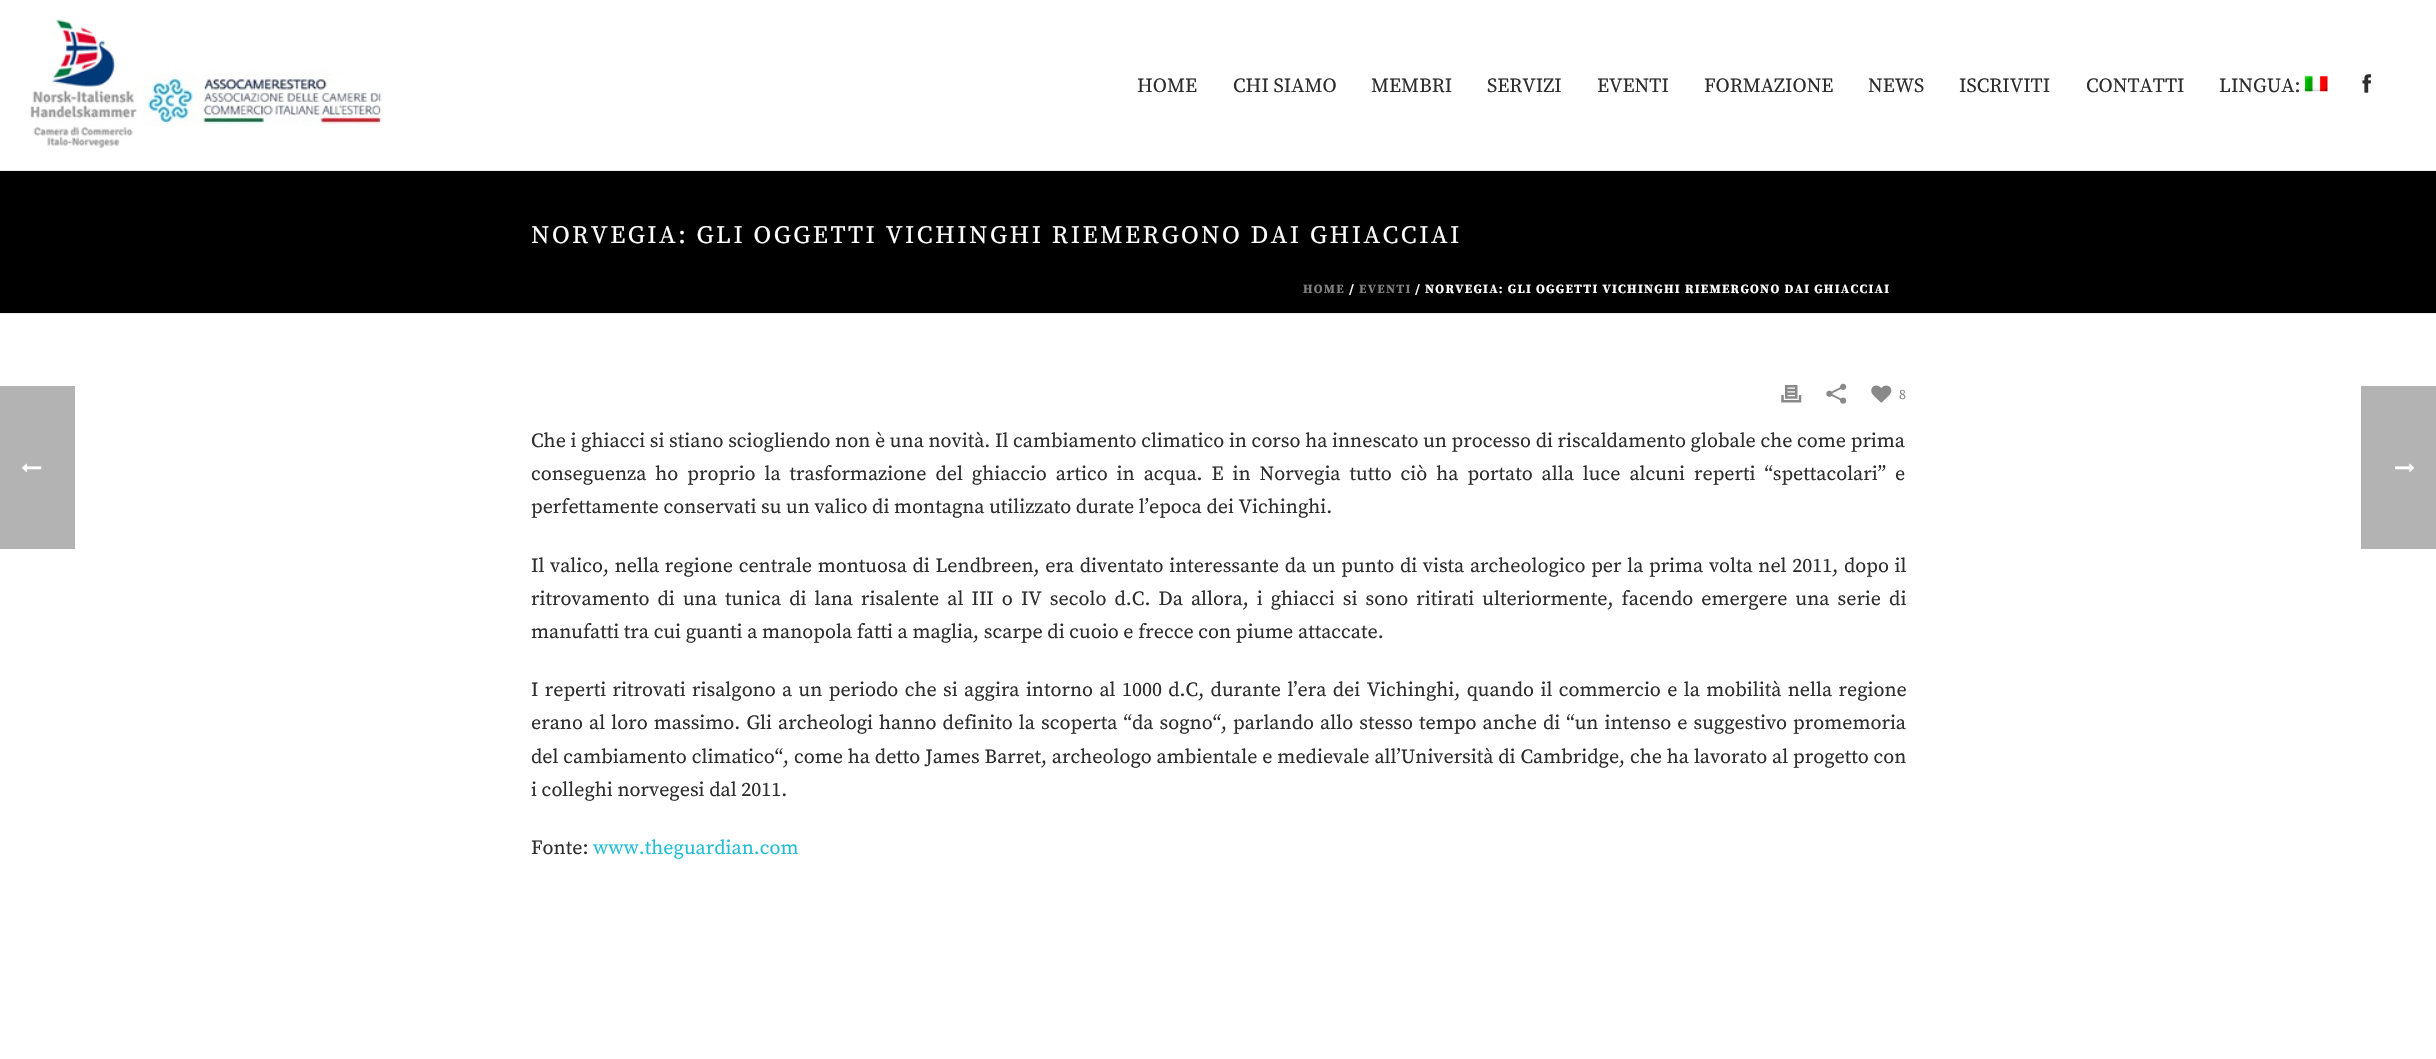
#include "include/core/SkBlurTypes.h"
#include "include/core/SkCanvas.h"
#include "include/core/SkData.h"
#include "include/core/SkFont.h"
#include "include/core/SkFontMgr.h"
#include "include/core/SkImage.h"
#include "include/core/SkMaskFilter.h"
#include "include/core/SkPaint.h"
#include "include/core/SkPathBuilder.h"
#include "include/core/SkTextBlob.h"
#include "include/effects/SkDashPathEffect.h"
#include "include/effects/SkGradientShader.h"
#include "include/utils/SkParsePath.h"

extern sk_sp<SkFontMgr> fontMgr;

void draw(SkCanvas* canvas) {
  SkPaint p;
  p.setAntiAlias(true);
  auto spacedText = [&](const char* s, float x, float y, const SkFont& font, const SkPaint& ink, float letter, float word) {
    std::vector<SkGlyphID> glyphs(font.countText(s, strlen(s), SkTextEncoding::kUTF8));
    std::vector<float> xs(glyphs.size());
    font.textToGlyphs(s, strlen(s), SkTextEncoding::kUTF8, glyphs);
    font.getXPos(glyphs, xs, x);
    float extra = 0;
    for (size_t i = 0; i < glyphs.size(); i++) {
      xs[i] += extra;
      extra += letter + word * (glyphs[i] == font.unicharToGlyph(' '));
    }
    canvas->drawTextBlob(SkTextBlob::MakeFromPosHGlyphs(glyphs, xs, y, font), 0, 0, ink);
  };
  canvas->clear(SK_ColorWHITE);
  p.setColor(SK_ColorBLACK);
  canvas->drawRect(SkRect::MakeLTRB(0, 171, 2436, 313), p);
  p.setColor(SkColorSetRGB(237, 237, 237));
  canvas->drawRect(SkRect::MakeLTRB(0, 313, 2436, 314), p);
  canvas->drawRect(SkRect::MakeLTRB(0, 170, 2436, 171), p);
  canvas->drawImageRect(SkImages::DeferredFromEncodedData(SkData::MakeFromFileName("images/1.png")), SkRect::MakeLTRB(30, 19, 384, 149), SkSamplingOptions());
  canvas->drawImageRect(SkImages::DeferredFromEncodedData(SkData::MakeFromFileName("images/2.png")), SkRect::MakeLTRB(2305, 76, 2328, 92), SkSamplingOptions());
  canvas->drawImageRect(SkImages::DeferredFromEncodedData(SkData::MakeFromFileName("images/3.png")), SkRect::MakeLTRB(2362, 74, 2372, 93), SkSamplingOptions());
  canvas->drawImageRect(SkImages::DeferredFromEncodedData(SkData::MakeFromFileName("images/4.png")), SkRect::MakeLTRB(1781, 385, 1802, 403), SkSamplingOptions());
  canvas->drawImageRect(SkImages::DeferredFromEncodedData(SkData::MakeFromFileName("images/5.png")), SkRect::MakeLTRB(1826, 383, 1847, 404), SkSamplingOptions());
  canvas->drawImageRect(SkImages::DeferredFromEncodedData(SkData::MakeFromFileName("images/6.png")), SkRect::MakeLTRB(1871, 385, 1892, 403), SkSamplingOptions());
  p.setColor(SkColorSetRGB(179, 179, 179));
  canvas->drawRect(SkRect::MakeLTRB(0, 386, 75, 549), p);
  canvas->drawImageRect(SkImages::DeferredFromEncodedData(SkData::MakeFromFileName("images/7.png")), SkRect::MakeLTRB(22, 463, 42, 472), SkSamplingOptions());
  canvas->drawRect(SkRect::MakeLTRB(2361, 386, 2436, 549), p);
  canvas->drawImageRect(SkImages::DeferredFromEncodedData(SkData::MakeFromFileName("images/8.png")), SkRect::MakeLTRB(2395, 463, 2415, 472), SkSamplingOptions());
  SkFont font1(fontMgr->matchFamilyStyle("Source Serif Pro", SkFontStyle::Normal()), 20);
  font1.setSubpixel(true);
  p.setColor(SkColorSetRGB(45, 45, 45));
  canvas->drawString("HOME", 1137, 92, font1, p);
  canvas->drawString("CHI SIAMO", 1233, 92, font1, p);
  canvas->drawString("MEMBRI", 1371, 92, font1, p);
  canvas->drawString("SERVIZI", 1487, 92, font1, p);
  canvas->drawString("EVENTI", 1597, 92, font1, p);
  canvas->drawString("FORMAZIONE", 1704, 92, font1, p);
  canvas->drawString("NEWS", 1868, 92, font1, p);
  canvas->drawString("ISCRIVITI", 1959, 92, font1, p);
  canvas->drawString("CONTATTI", 2086, 92, font1, p);
  canvas->drawString("LINGUA:", 2219, 92, font1, p);
  SkFont font2(fontMgr->matchFamilyStyle("Source Serif Pro", SkFontStyle::Normal()), 25);
  font2.setSubpixel(true);
  p.setColor(SK_ColorWHITE);
  spacedText("NORVEGIA: GLI OGGETTI VICHINGHI RIEMERGONO DAI GHIACCIAI", 531, 243, font2, p, 2.5f, 0);
  SkFont font3(fontMgr->matchFamilyStyle("Source Serif Pro", SkFontStyle::Bold()), 12.5f);
  font3.setSubpixel(true);
  p.setColor(SkColorSetRGB(128, 128, 128));
  spacedText("HOME", 1303, 293, font3, p, 1.25f, 0);
  p.setColor(SK_ColorWHITE);
  spacedText("/", 1349, 293, font3, p, 1.25f, 0);
  p.setColor(SkColorSetRGB(128, 128, 128));
  spacedText("EVENTI", 1359, 293, font3, p, 1.25f, 0);
  p.setColor(SK_ColorWHITE);
  spacedText("/ NORVEGIA: GLI OGGETTI VICHINGHI RIEMERGONO DAI GHIACCIAI", 1415, 293, font3, p, 1.25f, 0);
  SkFont font4(fontMgr->matchFamilyStyle("Source Serif Pro", SkFontStyle::Normal()), 14);
  font4.setSubpixel(true);
  p.setColor(SkColorSetRGB(137, 137, 137));
  canvas->drawString("8", 1899, 399, font4, p);
  p.setColor(SkColorSetRGB(45, 45, 45));
  canvas->drawString("Che i ghiacci si stiano sciogliendo non è una novità. Il cambiamento climatico in corso ha innescato un processo di riscaldamento globale che come prima", 531, 447, font1, p);
  spacedText("conseguenza ho proprio la trasformazione del ghiaccio artico in acqua. E in Norvegia tutto ciò ha portato alla luce alcuni reperti “spettacolari” e", 531, 480, font1, p, 0, 4.3f);
  canvas->drawString("perfettamente conservati su un valico di montagna utilizzato durate l’epoca dei Vichinghi.", 531, 513, font1, p);
  spacedText("Il valico, nella regione centrale montuosa di Lendbreen, era diventato interessante da un punto di vista archeologico per la prima volta nel 2011, dopo il", 531, 572, font1, p, 0, 1);
  spacedText("ritrovamento di una tunica di lana risalente al III o IV secolo d.C. Da allora, i ghiacci si sono ritirati ulteriormente, facendo emergere una serie di", 531, 605, font1, p, 0, 3.4f);
  canvas->drawString("manufatti tra cui guanti a manopola fatti a maglia, scarpe di cuoio e frecce con piume attaccate.", 531, 638, font1, p);
  spacedText("I reperti ritrovati risalgono a un periodo che si aggira intorno al 1000 d.C, durante l’era dei Vichinghi, quando il commercio e la mobilità nella regione", 531, 696, font1, p, 0, 1.7f);
  spacedText("erano al loro massimo. Gli archeologi hanno definito la scoperta “da sogno“, parlando allo stesso tempo anche di “un intenso e suggestivo promemoria", 531, 729, font1, p, 0, 1.45f);
  spacedText("del cambiamento climatico“, come ha detto James Barret, archeologo ambientale e medievale all’Università di Cambridge, che ha lavorato al progetto con", 531, 763, font1, p, 0, 0.2f);
  canvas->drawString("i colleghi norvegesi dal 2011.", 531, 796, font1, p);
  canvas->drawString("Fonte:", 531, 854, font1, p);
  p.setColor(SkColorSetRGB(34, 190, 214));
  canvas->drawString("www.theguardian.com", 593, 854, font1, p);
}
